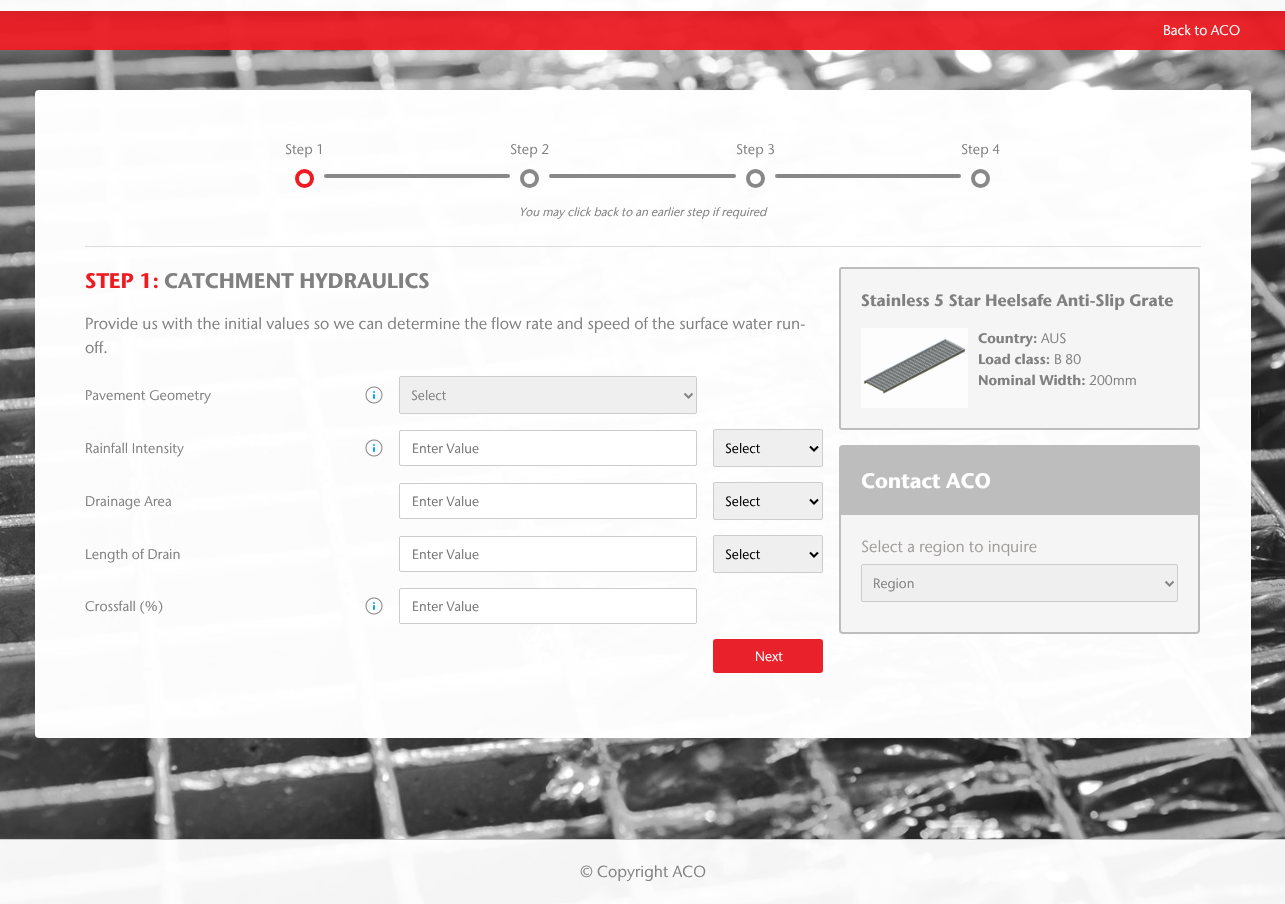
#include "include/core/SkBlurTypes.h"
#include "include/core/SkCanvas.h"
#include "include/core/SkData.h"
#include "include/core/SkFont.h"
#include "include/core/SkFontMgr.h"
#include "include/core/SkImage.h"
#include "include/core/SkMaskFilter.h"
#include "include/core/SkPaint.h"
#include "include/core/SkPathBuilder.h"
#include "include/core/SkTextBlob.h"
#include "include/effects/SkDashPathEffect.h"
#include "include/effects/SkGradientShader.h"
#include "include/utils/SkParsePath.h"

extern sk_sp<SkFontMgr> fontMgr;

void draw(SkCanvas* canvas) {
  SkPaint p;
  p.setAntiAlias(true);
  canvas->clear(SK_ColorWHITE);
  canvas->drawImageRect(SkImages::DeferredFromEncodedData(SkData::MakeFromFileName("images/1.png")), SkRect::MakeLTRB(0, 0, 1285, 904), SkSamplingOptions());
  p.setColor(SkColorSetARGB(242, 255, 255, 255));
  canvas->drawRect(SkRect::MakeLTRB(0, 0, 1285, 11), p);
  p.setColor(SkColorSetARGB(250, 255, 255, 255));
  canvas->drawRoundRect(SkRect::MakeLTRB(35, 90, 1251, 738), 4, 4, p);
  p.setColor(SkColorSetRGB(220, 220, 220));
  canvas->drawRect(SkRect::MakeLTRB(85, 246, 1201, 247), p);
  p.setColor(SK_ColorWHITE);
  canvas->drawCircle(304.5f, 178.5f, 7.5f, p);
  p.setStyle(SkPaint::kStroke_Style);
  p.setStrokeWidth(4);
  p.setColor(SkColorSetRGB(238, 27, 34));
  canvas->drawCircle(304.5f, 178.5f, 7.5f, p);
  p.setColor(SkColorSetRGB(136, 136, 136));
  canvas->drawCircle(529.5f, 178.5f, 7.5f, p);
  p.setStyle(SkPaint::kFill_Style);
  p.setColor(SK_ColorWHITE);
  canvas->drawCircle(755.5f, 178.5f, 7.5f, p);
  p.setStyle(SkPaint::kStroke_Style);
  p.setColor(SkColorSetRGB(136, 136, 136));
  canvas->drawCircle(755.5f, 178.5f, 7.5f, p);
  p.setStyle(SkPaint::kFill_Style);
  p.setColor(SK_ColorWHITE);
  canvas->drawCircle(980.5f, 178.5f, 7.5f, p);
  p.setStyle(SkPaint::kStroke_Style);
  p.setColor(SkColorSetRGB(136, 136, 136));
  canvas->drawCircle(980.5f, 178.5f, 7.5f, p);
  p.setStyle(SkPaint::kFill_Style);
  canvas->drawRoundRect(SkRect::MakeLTRB(324, 174, 510, 178), 2, 2, p);
  canvas->drawRoundRect(SkRect::MakeLTRB(549, 174, 736, 178), 2, 2, p);
  canvas->drawRoundRect(SkRect::MakeLTRB(775, 174, 961, 178), 2, 2, p);
  canvas->drawImageRect(SkImages::DeferredFromEncodedData(SkData::MakeFromFileName("images/2.png")), SkRect::MakeLTRB(365, 386, 383, 404), SkSamplingOptions());
  p.setColor(SkColorSetRGB(239, 239, 239));
  canvas->drawRoundRect(SkRect::MakeLTRB(399.5f, 376.5f, 696.5f, 413.5f), 1.5f, 1.5f, p);
  p.setStyle(SkPaint::kStroke_Style);
  p.setStrokeWidth(1);
  p.setColor(SkColorSetRGB(204, 204, 204));
  canvas->drawRoundRect(SkRect::MakeLTRB(399.5f, 376.5f, 696.5f, 413.5f), 1.5f, 1.5f, p);
  p.setStrokeWidth(2);
  p.setColor(SkColorSetRGB(132, 132, 132));
  canvas->drawPath(SkPathBuilder().moveTo(684.5f, 393.5f).lineTo(688.5f, 397.5f).lineTo(692.5f, 393.5f).detach(), p);
  canvas->drawImageRect(SkImages::DeferredFromEncodedData(SkData::MakeFromFileName("images/3.png")), SkRect::MakeLTRB(365, 439, 383, 457), SkSamplingOptions());
  p.setStyle(SkPaint::kFill_Style);
  p.setColor(SK_ColorWHITE);
  canvas->drawRoundRect(SkRect::MakeLTRB(399.5f, 430.5f, 696.5f, 465.5f), 1.5f, 1.5f, p);
  p.setStyle(SkPaint::kStroke_Style);
  p.setStrokeWidth(1);
  p.setColor(SkColorSetRGB(204, 204, 204));
  canvas->drawRoundRect(SkRect::MakeLTRB(399.5f, 430.5f, 696.5f, 465.5f), 1.5f, 1.5f, p);
  p.setStyle(SkPaint::kFill_Style);
  p.setColor(SkColorSetRGB(239, 239, 239));
  canvas->drawRoundRect(SkRect::MakeLTRB(713.5f, 429.5f, 822.5f, 466.5f), 1.5f, 1.5f, p);
  p.setStyle(SkPaint::kStroke_Style);
  p.setColor(SkColorSetRGB(204, 204, 204));
  canvas->drawRoundRect(SkRect::MakeLTRB(713.5f, 429.5f, 822.5f, 466.5f), 1.5f, 1.5f, p);
  p.setStrokeWidth(2);
  p.setColor(SK_ColorBLACK);
  canvas->drawPath(SkPathBuilder().moveTo(810, 446.5f).lineTo(814, 450.5f).lineTo(818, 446.5f).detach(), p);
  p.setStyle(SkPaint::kFill_Style);
  p.setColor(SK_ColorWHITE);
  canvas->drawRoundRect(SkRect::MakeLTRB(399.5f, 483.5f, 696.5f, 518.5f), 1.5f, 1.5f, p);
  p.setStyle(SkPaint::kStroke_Style);
  p.setStrokeWidth(1);
  p.setColor(SkColorSetRGB(204, 204, 204));
  canvas->drawRoundRect(SkRect::MakeLTRB(399.5f, 483.5f, 696.5f, 518.5f), 1.5f, 1.5f, p);
  p.setStyle(SkPaint::kFill_Style);
  p.setColor(SkColorSetRGB(239, 239, 239));
  canvas->drawRoundRect(SkRect::MakeLTRB(713.5f, 482.5f, 822.5f, 519.5f), 1.5f, 1.5f, p);
  p.setStyle(SkPaint::kStroke_Style);
  p.setColor(SkColorSetRGB(204, 204, 204));
  canvas->drawRoundRect(SkRect::MakeLTRB(713.5f, 482.5f, 822.5f, 519.5f), 1.5f, 1.5f, p);
  p.setStrokeWidth(2);
  p.setColor(SK_ColorBLACK);
  canvas->drawPath(SkPathBuilder().moveTo(810, 499.5f).lineTo(814, 503.5f).lineTo(818, 499.5f).detach(), p);
  p.setStyle(SkPaint::kFill_Style);
  p.setColor(SK_ColorWHITE);
  canvas->drawRoundRect(SkRect::MakeLTRB(399.5f, 536.5f, 696.5f, 571.5f), 1.5f, 1.5f, p);
  p.setStyle(SkPaint::kStroke_Style);
  p.setStrokeWidth(1);
  p.setColor(SkColorSetRGB(204, 204, 204));
  canvas->drawRoundRect(SkRect::MakeLTRB(399.5f, 536.5f, 696.5f, 571.5f), 1.5f, 1.5f, p);
  p.setStyle(SkPaint::kFill_Style);
  p.setColor(SkColorSetRGB(239, 239, 239));
  canvas->drawRoundRect(SkRect::MakeLTRB(713.5f, 535.5f, 822.5f, 572.5f), 1.5f, 1.5f, p);
  p.setStyle(SkPaint::kStroke_Style);
  p.setColor(SkColorSetRGB(204, 204, 204));
  canvas->drawRoundRect(SkRect::MakeLTRB(713.5f, 535.5f, 822.5f, 572.5f), 1.5f, 1.5f, p);
  p.setStrokeWidth(2);
  p.setColor(SK_ColorBLACK);
  canvas->drawPath(SkPathBuilder().moveTo(810, 552.5f).lineTo(814, 556.5f).lineTo(818, 552.5f).detach(), p);
  canvas->drawImageRect(SkImages::DeferredFromEncodedData(SkData::MakeFromFileName("images/4.png")), SkRect::MakeLTRB(365, 597, 383, 615), SkSamplingOptions());
  p.setStyle(SkPaint::kFill_Style);
  p.setColor(SK_ColorWHITE);
  canvas->drawRoundRect(SkRect::MakeLTRB(399.5f, 588.5f, 696.5f, 623.5f), 1.5f, 1.5f, p);
  p.setStyle(SkPaint::kStroke_Style);
  p.setStrokeWidth(1);
  p.setColor(SkColorSetRGB(204, 204, 204));
  canvas->drawRoundRect(SkRect::MakeLTRB(399.5f, 588.5f, 696.5f, 623.5f), 1.5f, 1.5f, p);
  p.setStyle(SkPaint::kFill_Style);
  p.setColor(SkColorSetRGB(233, 33, 43));
  canvas->drawRoundRect(SkRect::MakeLTRB(713, 639, 823, 673), 3, 3, p);
  p.setColor(SkColorSetRGB(245, 245, 245));
  canvas->drawRoundRect(SkRect::MakeLTRB(840, 268, 1199, 429), 2, 2, p);
  p.setStyle(SkPaint::kStroke_Style);
  p.setStrokeWidth(2);
  p.setColor(SkColorSetRGB(189, 189, 189));
  canvas->drawRoundRect(SkRect::MakeLTRB(840, 268, 1199, 429), 2, 2, p);
  canvas->drawImageRect(SkImages::DeferredFromEncodedData(SkData::MakeFromFileName("images/5.png")), SkRect::MakeLTRB(861, 328, 968, 408), SkSamplingOptions());
  p.setStyle(SkPaint::kFill_Style);
  p.setColor(SkColorSetRGB(245, 245, 245));
  canvas->drawRoundRect(SkRect::MakeLTRB(840, 446, 1199, 633), 3, 3, p);
  p.setStyle(SkPaint::kStroke_Style);
  p.setColor(SkColorSetRGB(189, 189, 189));
  canvas->drawRoundRect(SkRect::MakeLTRB(840, 446, 1199, 633), 3, 3, p);
  p.setStyle(SkPaint::kFill_Style);
  canvas->drawRect(SkRect::MakeLTRB(841, 447, 1198, 515), p);
  p.setColor(SkColorSetRGB(239, 239, 239));
  canvas->drawRoundRect(SkRect::MakeLTRB(861.5f, 564.5f, 1177.5f, 601.5f), 1.5f, 1.5f, p);
  p.setStyle(SkPaint::kStroke_Style);
  p.setStrokeWidth(1);
  p.setColor(SkColorSetRGB(204, 204, 204));
  canvas->drawRoundRect(SkRect::MakeLTRB(861.5f, 564.5f, 1177.5f, 601.5f), 1.5f, 1.5f, p);
  p.setStrokeWidth(2);
  p.setColor(SkColorSetRGB(132, 132, 132));
  canvas->drawPath(SkPathBuilder().moveTo(1165.5f, 581.5f).lineTo(1169.5f, 585.5f).lineTo(1173.5f, 581.5f).detach(), p);
  p.setStyle(SkPaint::kFill_Style);
  p.setColor(SkColorSetARGB(242, 255, 255, 255));
  canvas->drawRect(SkRect::MakeLTRB(0, 840, 1285, 904), p);
  p.setColor(SkColorSetRGB(204, 204, 204));
  canvas->drawRect(SkRect::MakeLTRB(0, 839, 1285, 840), p);
  SkFont font1(fontMgr->matchFamilyStyle("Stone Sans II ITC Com", SkFontStyle::Normal()), 14);
  font1.setSubpixel(true);
  p.setColor(SK_ColorWHITE);
  canvas->drawString("Back to ACO", 1163, 35, font1, p);
  p.setColor(SkColorSetRGB(128, 128, 128));
  canvas->drawString("Step 1", 285, 154, font1, p);
  canvas->drawString("Step 2", 510, 154, font1, p);
  canvas->drawString("Step 3", 736, 154, font1, p);
  canvas->drawString("Step 4", 961, 154, font1, p);
  SkFont font2(fontMgr->matchFamilyStyle("Stone Sans II ITC Com", SkFontStyle::Italic()), 12);
  font2.setSubpixel(true);
  canvas->drawString("You may click back to an earlier step if required", 519, 216, font2, p);
  SkFont font3(fontMgr->matchFamilyStyle("Stone Sans II ITC Com", SkFontStyle::Bold()), 21);
  font3.setSubpixel(true);
  p.setColor(SkColorSetRGB(238, 27, 34));
  canvas->drawString("STEP 1:", 85, 288, font3, p);
  p.setColor(SkColorSetRGB(128, 128, 128));
  canvas->drawString("CATCHMENT HYDRAULICS", 164, 288, font3, p);
  SkFont font4(fontMgr->matchFamilyStyle("Stone Sans II ITC Com", SkFontStyle::Normal()), 16);
  font4.setSubpixel(true);
  canvas->drawString("Provide us with the initial values so we can determine the flow rate and speed of the surface water run-", 85, 329, font4, p);
  canvas->drawString("off.", 85, 353, font4, p);
  canvas->drawString("Pavement Geometry", 85, 400, font1, p);
  SkFont font5(fontMgr->matchFamilyStyle("Stone Sans II ITC Com", SkFontStyle::Normal()), 13.5f);
  font5.setSubpixel(true);
  canvas->drawString("Select", 411, 400, font5, p);
  canvas->drawString("Rainfall Intensity", 85, 453, font1, p);
  p.setColor(SkColorSetRGB(117, 117, 117));
  canvas->drawString("Enter Value", 412, 453, font5, p);
  p.setColor(SK_ColorBLACK);
  canvas->drawString("Select", 725, 453, font5, p);
  p.setColor(SkColorSetRGB(128, 128, 128));
  canvas->drawString("Drainage Area", 85, 506, font1, p);
  p.setColor(SkColorSetRGB(117, 117, 117));
  canvas->drawString("Enter Value", 412, 506, font5, p);
  p.setColor(SK_ColorBLACK);
  canvas->drawString("Select", 725, 506, font5, p);
  p.setColor(SkColorSetRGB(128, 128, 128));
  canvas->drawString("Length of Drain", 85, 559, font1, p);
  p.setColor(SkColorSetRGB(117, 117, 117));
  canvas->drawString("Enter Value", 412, 559, font5, p);
  p.setColor(SK_ColorBLACK);
  canvas->drawString("Select", 725, 559, font5, p);
  p.setColor(SkColorSetRGB(128, 128, 128));
  canvas->drawString("Crossfall (%)", 85, 611, font1, p);
  p.setColor(SkColorSetRGB(117, 117, 117));
  canvas->drawString("Enter Value", 412, 611, font5, p);
  p.setColor(SK_ColorWHITE);
  canvas->drawString("Next", 755, 661, font5, p);
  SkFont font6(fontMgr->matchFamilyStyle("Stone Sans II ITC Com", SkFontStyle::Bold()), 16.4f);
  font6.setSubpixel(true);
  p.setColor(SkColorSetRGB(128, 128, 128));
  canvas->drawString("Stainless 5 Star Heelsafe Anti-Slip Grate", 861, 306, font6, p);
  SkFont font7(fontMgr->matchFamilyStyle("Stone Sans II ITC Com", SkFontStyle::Bold()), 14);
  font7.setSubpixel(true);
  canvas->drawString("Country:", 978, 343, font7, p);
  canvas->drawString("AUS", 1041, 343, font1, p);
  canvas->drawString("Load class:", 978, 364, font7, p);
  canvas->drawString("B 80", 1054, 364, font1, p);
  canvas->drawString("Nominal Width:", 978, 385, font7, p);
  canvas->drawString("200mm", 1089, 385, font1, p);
  p.setColor(SK_ColorWHITE);
  canvas->drawString("Contact ACO", 861, 488, font3, p);
  p.setColor(SkColorSetRGB(164, 156, 156));
  canvas->drawString("Select a region to inquire", 861, 552, font4, p);
  p.setColor(SkColorSetRGB(128, 128, 128));
  canvas->drawString("Region", 873, 588, font5, p);
  canvas->drawString("© Copyright ACO", 580, 877, font4, p);
}
